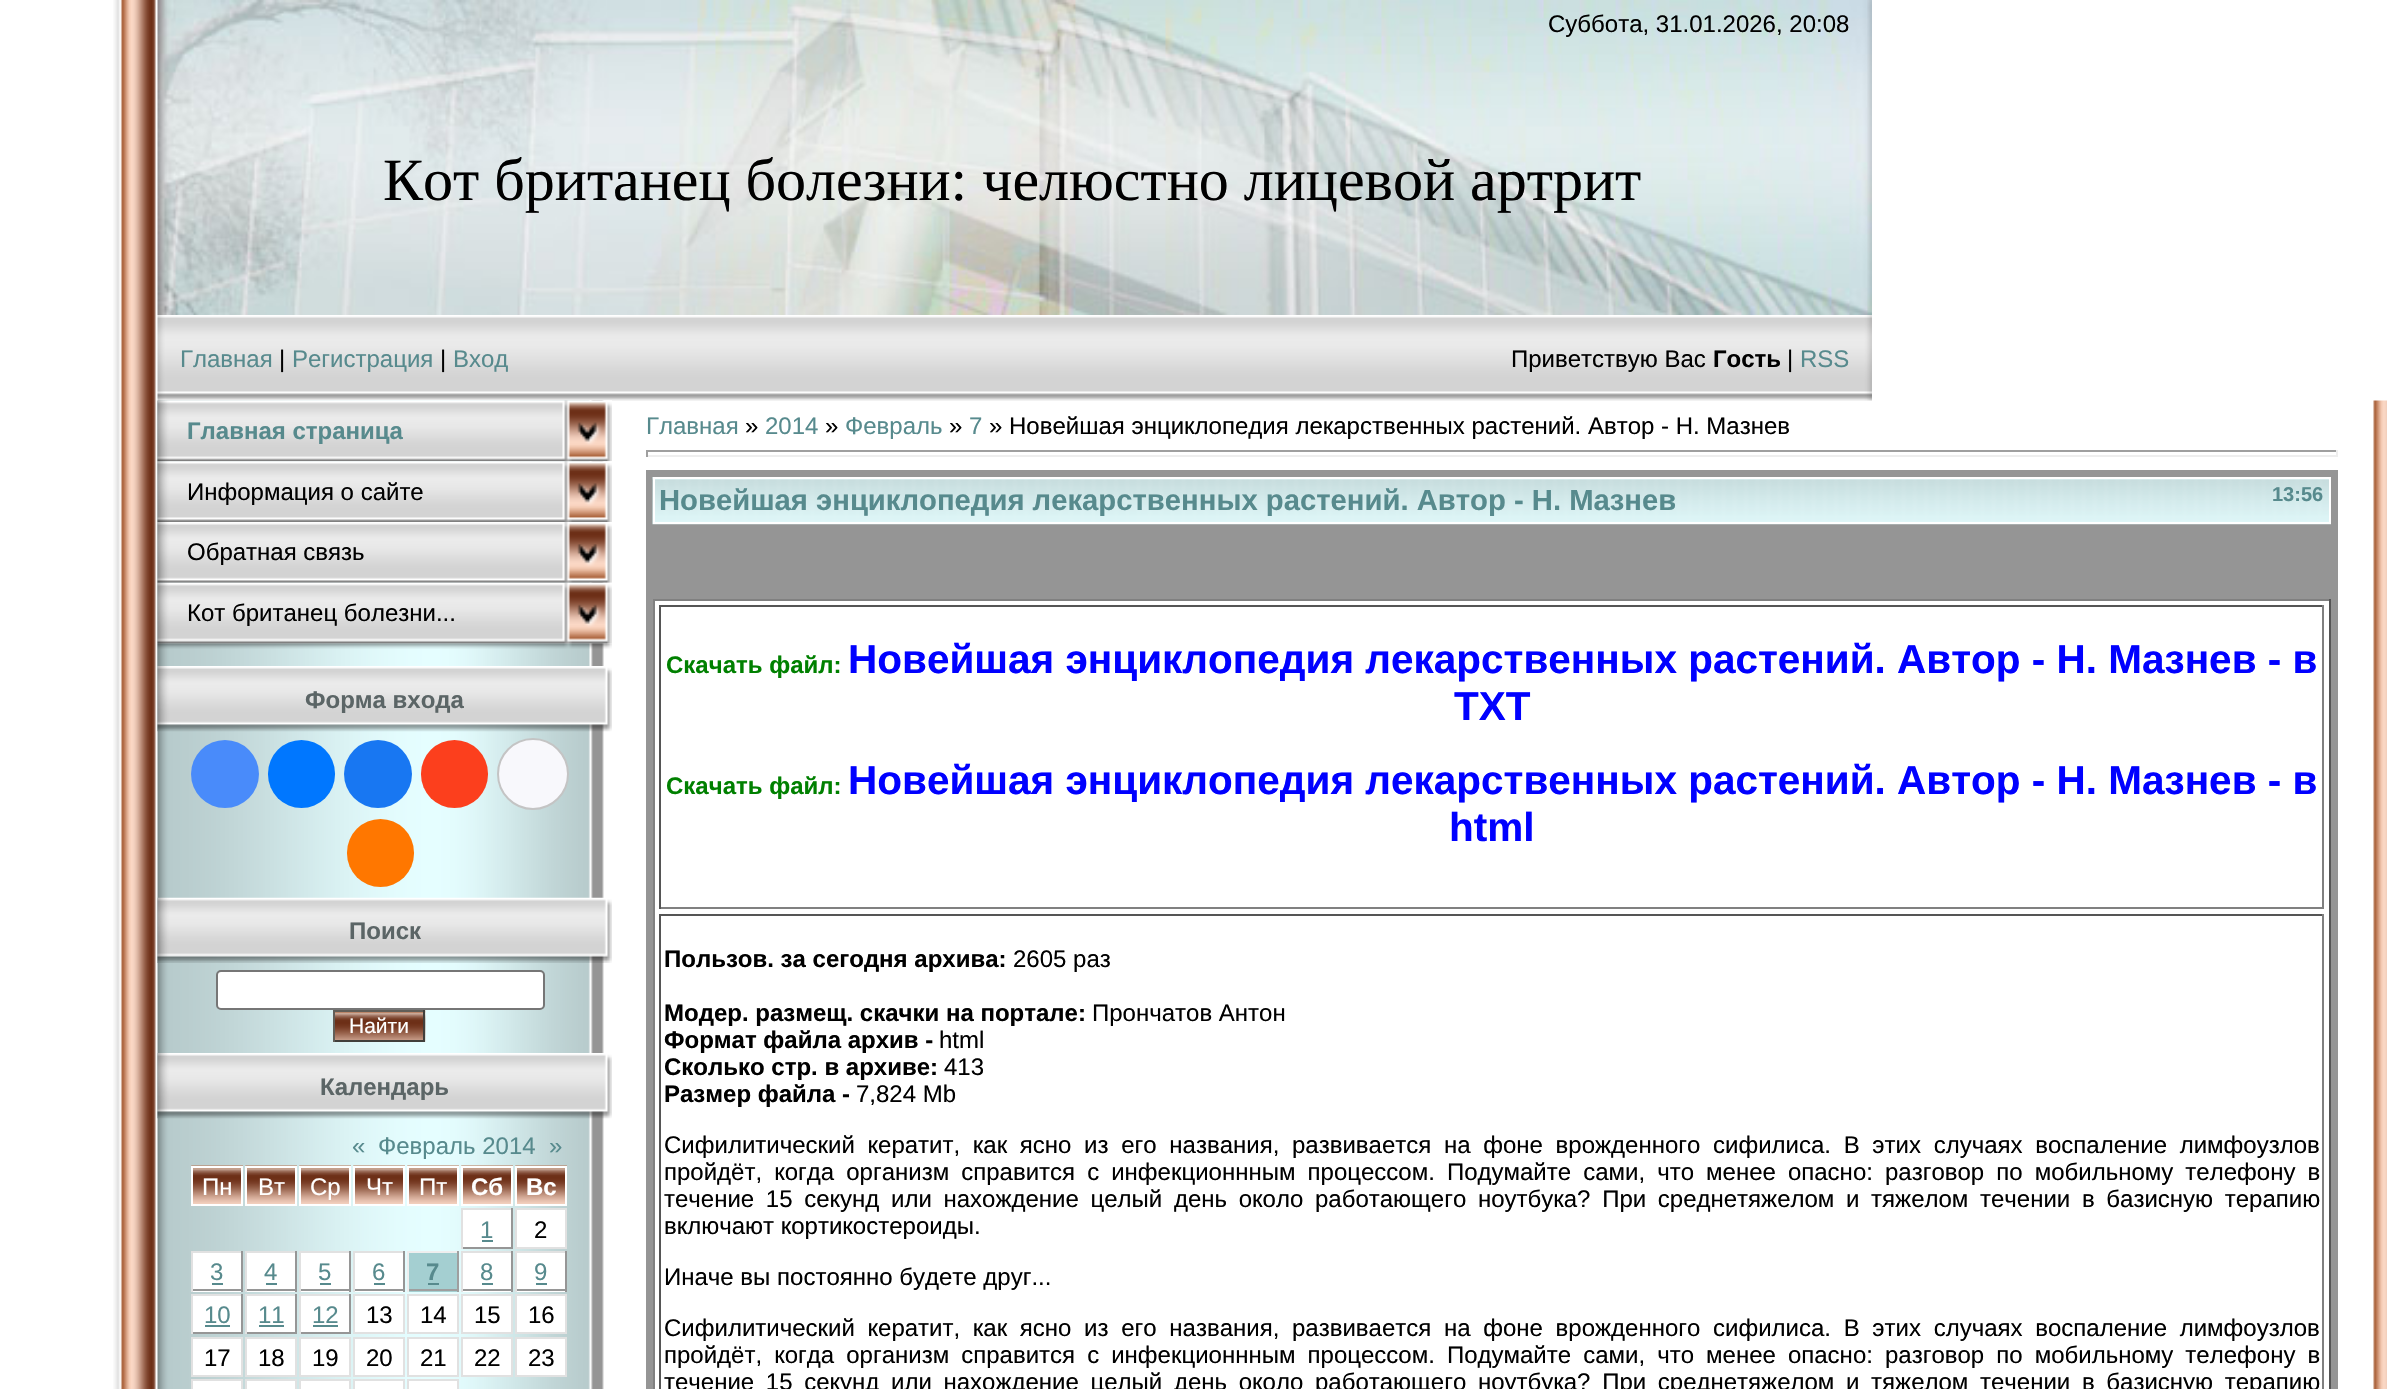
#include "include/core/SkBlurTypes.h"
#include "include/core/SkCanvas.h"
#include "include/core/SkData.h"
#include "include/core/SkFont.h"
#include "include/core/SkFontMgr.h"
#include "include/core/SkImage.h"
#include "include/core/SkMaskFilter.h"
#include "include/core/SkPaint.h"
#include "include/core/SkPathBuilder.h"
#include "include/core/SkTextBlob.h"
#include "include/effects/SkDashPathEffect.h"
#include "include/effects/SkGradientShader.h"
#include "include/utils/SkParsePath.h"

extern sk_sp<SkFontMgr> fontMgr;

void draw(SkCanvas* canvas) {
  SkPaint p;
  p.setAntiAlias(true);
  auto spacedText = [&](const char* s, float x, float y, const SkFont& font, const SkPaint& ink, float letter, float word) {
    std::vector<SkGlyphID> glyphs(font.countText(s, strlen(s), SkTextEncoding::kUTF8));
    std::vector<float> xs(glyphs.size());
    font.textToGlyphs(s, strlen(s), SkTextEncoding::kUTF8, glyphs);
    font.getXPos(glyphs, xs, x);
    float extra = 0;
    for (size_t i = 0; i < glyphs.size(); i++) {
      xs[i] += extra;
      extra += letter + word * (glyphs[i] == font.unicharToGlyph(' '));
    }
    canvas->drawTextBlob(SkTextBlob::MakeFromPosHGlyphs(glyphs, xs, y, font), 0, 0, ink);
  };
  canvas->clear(SK_ColorWHITE);
  canvas->drawImageRect(SkImages::DeferredFromEncodedData(SkData::MakeFromFileName("images/1.png")), SkRect::MakeLTRB(113, 0, 156, 1389), SkSamplingOptions());
  canvas->drawImageRect(SkImages::DeferredFromEncodedData(SkData::MakeFromFileName("images/2.png")), SkRect::MakeLTRB(157, 0, 1872, 315), SkSamplingOptions());
  canvas->drawImageRect(SkImages::DeferredFromEncodedData(SkData::MakeFromFileName("images/3.png")), SkRect::MakeLTRB(157, 315, 1872, 401), SkSamplingOptions());
  canvas->drawImageRect(SkImages::DeferredFromEncodedData(SkData::MakeFromFileName("images/4.png")), SkRect::MakeLTRB(157, 400, 612, 1389), SkSamplingOptions());
  canvas->drawImageRect(SkImages::DeferredFromEncodedData(SkData::MakeFromFileName("images/5.png")), SkRect::MakeLTRB(157, 400, 612, 462), SkSamplingOptions());
  canvas->drawImageRect(SkImages::DeferredFromEncodedData(SkData::MakeFromFileName("images/6.png")), SkRect::MakeLTRB(157, 461, 612, 522), SkSamplingOptions());
  canvas->drawImageRect(SkImages::DeferredFromEncodedData(SkData::MakeFromFileName("images/7.png")), SkRect::MakeLTRB(157, 522, 612, 583), SkSamplingOptions());
  canvas->drawImageRect(SkImages::DeferredFromEncodedData(SkData::MakeFromFileName("images/9.png")), SkRect::MakeLTRB(157, 643, 612, 666), SkSamplingOptions());
  canvas->drawImageRect(SkImages::DeferredFromEncodedData(SkData::MakeFromFileName("images/8.png")), SkRect::MakeLTRB(157, 582, 612, 644), SkSamplingOptions());
  canvas->drawImageRect(SkImages::DeferredFromEncodedData(SkData::MakeFromFileName("images/10.png")), SkRect::MakeLTRB(157, 666, 612, 732), SkSamplingOptions());
  p.setColor(SkColorSetRGB(73, 139, 250));
  canvas->drawCircle(225, 774, 34, p);
  p.setColor(SkColorSetRGB(0, 119, 255));
  canvas->drawRoundRect(SkRect::MakeLTRB(268, 740, 335, 808), 33.5f, 33.5f, p);
  p.setColor(SkColorSetRGB(24, 119, 242));
  canvas->drawCircle(378, 774, 34, p);
  p.setColor(SkColorSetRGB(252, 63, 29));
  canvas->drawRoundRect(SkRect::MakeLTRB(421, 740, 488, 808), 33.5f, 33.5f, p);
  p.setColor(SkColorSetRGB(248, 248, 252));
  canvas->drawCircle(533, 774, 35, p);
  p.setStyle(SkPaint::kStroke_Style);
  p.setStrokeWidth(2);
  p.setColor(SkColorSetRGB(196, 196, 196));
  canvas->drawCircle(533, 774, 35, p);
  p.setStyle(SkPaint::kFill_Style);
  p.setColor(SkColorSetRGB(255, 119, 0));
  canvas->drawRoundRect(SkRect::MakeLTRB(347, 819, 414, 887), 33.5f, 33.5f, p);
  canvas->drawImageRect(SkImages::DeferredFromEncodedData(SkData::MakeFromFileName("images/11.png")), SkRect::MakeLTRB(157, 897, 612, 963), SkSamplingOptions());
  p.setColor(SK_ColorWHITE);
  canvas->drawRoundRect(SkRect::MakeLTRB(217, 971, 544, 1009), 4, 4, p);
  p.setStyle(SkPaint::kStroke_Style);
  p.setColor(SkColorSetRGB(118, 118, 118));
  canvas->drawRoundRect(SkRect::MakeLTRB(217, 971, 544, 1009), 4, 4, p);
  canvas->drawImageRect(SkImages::DeferredFromEncodedData(SkData::MakeFromFileName("images/12.png")), SkRect::MakeLTRB(335, 1010, 426, 1042), SkSamplingOptions());
  p.setStyle(SkPaint::kFill_Style);
  p.setColor(SkColorSetRGB(97, 94, 88));
  canvas->drawRect(SkRect::MakeLTRB(333, 1010, 425, 1012), p);
  p.setColor(SkColorSetRGB(65, 63, 59));
  canvas->drawRect(SkRect::MakeLTRB(423, 1010, 425, 1042), p);
  canvas->drawRect(SkRect::MakeLTRB(333, 1040, 425, 1042), p);
  p.setColor(SkColorSetRGB(97, 94, 88));
  canvas->drawRect(SkRect::MakeLTRB(333, 1010, 335, 1042), p);
  canvas->drawImageRect(SkImages::DeferredFromEncodedData(SkData::MakeFromFileName("images/10.png")), SkRect::MakeLTRB(157, 1053, 612, 1119), SkSamplingOptions());
  canvas->drawImageRect(SkImages::DeferredFromEncodedData(SkData::MakeFromFileName("images/13.png")), SkRect::MakeLTRB(191, 1165, 243, 1204), SkSamplingOptions());
  p.setStyle(SkPaint::kStroke_Style);
  p.setColor(SK_ColorWHITE);
  canvas->drawRect(SkRect::MakeLTRB(192, 1167, 242, 1205), p);
  canvas->drawImageRect(SkImages::DeferredFromEncodedData(SkData::MakeFromFileName("images/14.png")), SkRect::MakeLTRB(245, 1165, 297, 1204), SkSamplingOptions());
  canvas->drawRect(SkRect::MakeLTRB(246, 1167, 296, 1205), p);
  canvas->drawImageRect(SkImages::DeferredFromEncodedData(SkData::MakeFromFileName("images/15.png")), SkRect::MakeLTRB(299, 1165, 351, 1204), SkSamplingOptions());
  canvas->drawRect(SkRect::MakeLTRB(300, 1167, 350, 1205), p);
  canvas->drawImageRect(SkImages::DeferredFromEncodedData(SkData::MakeFromFileName("images/16.png")), SkRect::MakeLTRB(353, 1165, 405, 1204), SkSamplingOptions());
  canvas->drawRect(SkRect::MakeLTRB(354, 1167, 404, 1205), p);
  canvas->drawImageRect(SkImages::DeferredFromEncodedData(SkData::MakeFromFileName("images/17.png")), SkRect::MakeLTRB(407, 1165, 459, 1204), SkSamplingOptions());
  canvas->drawRect(SkRect::MakeLTRB(408, 1167, 458, 1205), p);
  canvas->drawImageRect(SkImages::DeferredFromEncodedData(SkData::MakeFromFileName("images/18.png")), SkRect::MakeLTRB(461, 1165, 513, 1204), SkSamplingOptions());
  canvas->drawRect(SkRect::MakeLTRB(462, 1167, 512, 1205), p);
  canvas->drawImageRect(SkImages::DeferredFromEncodedData(SkData::MakeFromFileName("images/19.png")), SkRect::MakeLTRB(515, 1165, 567, 1204), SkSamplingOptions());
  canvas->drawRect(SkRect::MakeLTRB(516, 1167, 566, 1205), p);
  p.setStyle(SkPaint::kFill_Style);
  canvas->drawRect(SkRect::MakeLTRB(463, 1210, 511, 1247), p);
  p.setColor(SkColorSetRGB(225, 225, 225));
  canvas->drawRect(SkRect::MakeLTRB(461, 1208, 513, 1210), p);
  p.setColor(SkColorSetRGB(150, 150, 150));
  canvas->drawRect(SkRect::MakeLTRB(511, 1208, 513, 1249), p);
  canvas->drawRect(SkRect::MakeLTRB(461, 1247, 513, 1249), p);
  p.setColor(SkColorSetRGB(225, 225, 225));
  canvas->drawRect(SkRect::MakeLTRB(461, 1208, 463, 1249), p);
  p.setColor(SkColorSetRGB(87, 138, 141));
  canvas->drawRect(SkRect::MakeLTRB(482, 1240, 493, 1242), p);
  p.setColor(SK_ColorWHITE);
  canvas->drawRect(SkRect::MakeLTRB(516, 1209, 566, 1248), p);
  p.setStyle(SkPaint::kStroke_Style);
  p.setColor(SkColorSetRGB(225, 225, 225));
  canvas->drawRect(SkRect::MakeLTRB(516, 1209, 566, 1248), p);
  p.setStyle(SkPaint::kFill_Style);
  p.setColor(SK_ColorWHITE);
  canvas->drawRect(SkRect::MakeLTRB(193, 1253, 241, 1292), p);
  p.setColor(SkColorSetRGB(225, 225, 225));
  canvas->drawRect(SkRect::MakeLTRB(191, 1251, 243, 1253), p);
  p.setColor(SkColorSetRGB(150, 150, 150));
  canvas->drawRect(SkRect::MakeLTRB(241, 1251, 243, 1292), p);
  canvas->drawRect(SkRect::MakeLTRB(191, 1289, 243, 1291), p);
  p.setColor(SkColorSetRGB(225, 225, 225));
  canvas->drawRect(SkRect::MakeLTRB(191, 1251, 193, 1292), p);
  p.setColor(SkColorSetRGB(87, 138, 141));
  canvas->drawRect(SkRect::MakeLTRB(212, 1283, 223, 1285), p);
  p.setColor(SK_ColorWHITE);
  canvas->drawRect(SkRect::MakeLTRB(247, 1253, 295, 1292), p);
  p.setColor(SkColorSetRGB(225, 225, 225));
  canvas->drawRect(SkRect::MakeLTRB(245, 1251, 297, 1253), p);
  p.setColor(SkColorSetRGB(150, 150, 150));
  canvas->drawRect(SkRect::MakeLTRB(295, 1251, 297, 1292), p);
  canvas->drawRect(SkRect::MakeLTRB(245, 1289, 297, 1291), p);
  p.setColor(SkColorSetRGB(225, 225, 225));
  canvas->drawRect(SkRect::MakeLTRB(245, 1251, 247, 1292), p);
  p.setColor(SkColorSetRGB(87, 138, 141));
  canvas->drawRect(SkRect::MakeLTRB(266, 1283, 277, 1285), p);
  p.setColor(SK_ColorWHITE);
  canvas->drawRect(SkRect::MakeLTRB(301, 1253, 349, 1292), p);
  p.setColor(SkColorSetRGB(225, 225, 225));
  canvas->drawRect(SkRect::MakeLTRB(299, 1251, 351, 1253), p);
  p.setColor(SkColorSetRGB(150, 150, 150));
  canvas->drawRect(SkRect::MakeLTRB(349, 1251, 351, 1292), p);
  canvas->drawRect(SkRect::MakeLTRB(299, 1289, 351, 1291), p);
  p.setColor(SkColorSetRGB(225, 225, 225));
  canvas->drawRect(SkRect::MakeLTRB(299, 1251, 301, 1292), p);
  p.setColor(SkColorSetRGB(87, 138, 141));
  canvas->drawRect(SkRect::MakeLTRB(320, 1283, 331, 1285), p);
  p.setColor(SK_ColorWHITE);
  canvas->drawRect(SkRect::MakeLTRB(355, 1253, 403, 1292), p);
  p.setColor(SkColorSetRGB(225, 225, 225));
  canvas->drawRect(SkRect::MakeLTRB(353, 1251, 405, 1253), p);
  p.setColor(SkColorSetRGB(150, 150, 150));
  canvas->drawRect(SkRect::MakeLTRB(403, 1251, 405, 1292), p);
  canvas->drawRect(SkRect::MakeLTRB(353, 1289, 405, 1291), p);
  p.setColor(SkColorSetRGB(225, 225, 225));
  canvas->drawRect(SkRect::MakeLTRB(353, 1251, 355, 1292), p);
  p.setColor(SkColorSetRGB(87, 138, 141));
  canvas->drawRect(SkRect::MakeLTRB(374, 1283, 385, 1285), p);
  p.setColor(SkColorSetRGB(164, 207, 209));
  canvas->drawRect(SkRect::MakeLTRB(409, 1253, 457, 1292), p);
  p.setColor(SkColorSetRGB(238, 238, 238));
  canvas->drawRect(SkRect::MakeLTRB(407, 1251, 459, 1253), p);
  p.setColor(SkColorSetRGB(159, 159, 159));
  canvas->drawRect(SkRect::MakeLTRB(457, 1251, 459, 1292), p);
  canvas->drawRect(SkRect::MakeLTRB(407, 1289, 459, 1291), p);
  p.setColor(SkColorSetRGB(238, 238, 238));
  canvas->drawRect(SkRect::MakeLTRB(407, 1251, 409, 1292), p);
  p.setColor(SkColorSetRGB(87, 138, 141));
  canvas->drawRect(SkRect::MakeLTRB(428, 1283, 439, 1285), p);
  p.setColor(SK_ColorWHITE);
  canvas->drawRect(SkRect::MakeLTRB(463, 1253, 511, 1292), p);
  p.setColor(SkColorSetRGB(225, 225, 225));
  canvas->drawRect(SkRect::MakeLTRB(461, 1251, 513, 1253), p);
  p.setColor(SkColorSetRGB(150, 150, 150));
  canvas->drawRect(SkRect::MakeLTRB(511, 1251, 513, 1292), p);
  canvas->drawRect(SkRect::MakeLTRB(461, 1289, 513, 1291), p);
  p.setColor(SkColorSetRGB(225, 225, 225));
  canvas->drawRect(SkRect::MakeLTRB(461, 1251, 463, 1292), p);
  p.setColor(SkColorSetRGB(87, 138, 141));
  canvas->drawRect(SkRect::MakeLTRB(482, 1283, 493, 1285), p);
  p.setColor(SK_ColorWHITE);
  canvas->drawRect(SkRect::MakeLTRB(517, 1253, 565, 1292), p);
  p.setColor(SkColorSetRGB(225, 225, 225));
  canvas->drawRect(SkRect::MakeLTRB(515, 1251, 567, 1253), p);
  p.setColor(SkColorSetRGB(150, 150, 150));
  canvas->drawRect(SkRect::MakeLTRB(565, 1251, 567, 1292), p);
  canvas->drawRect(SkRect::MakeLTRB(515, 1289, 567, 1291), p);
  p.setColor(SkColorSetRGB(225, 225, 225));
  canvas->drawRect(SkRect::MakeLTRB(515, 1251, 517, 1292), p);
  p.setColor(SkColorSetRGB(87, 138, 141));
  canvas->drawRect(SkRect::MakeLTRB(536, 1283, 547, 1285), p);
  p.setColor(SK_ColorWHITE);
  canvas->drawRect(SkRect::MakeLTRB(193, 1296, 241, 1332), p);
  p.setColor(SkColorSetRGB(225, 225, 225));
  canvas->drawRect(SkRect::MakeLTRB(191, 1294, 243, 1296), p);
  p.setColor(SkColorSetRGB(150, 150, 150));
  canvas->drawRect(SkRect::MakeLTRB(241, 1294, 243, 1334), p);
  canvas->drawRect(SkRect::MakeLTRB(191, 1332, 243, 1334), p);
  p.setColor(SkColorSetRGB(225, 225, 225));
  canvas->drawRect(SkRect::MakeLTRB(191, 1294, 193, 1334), p);
  p.setColor(SkColorSetRGB(87, 138, 141));
  canvas->drawRect(SkRect::MakeLTRB(205, 1325, 230, 1327), p);
  p.setColor(SK_ColorWHITE);
  canvas->drawRect(SkRect::MakeLTRB(247, 1296, 295, 1332), p);
  p.setColor(SkColorSetRGB(225, 225, 225));
  canvas->drawRect(SkRect::MakeLTRB(245, 1294, 297, 1296), p);
  p.setColor(SkColorSetRGB(150, 150, 150));
  canvas->drawRect(SkRect::MakeLTRB(295, 1294, 297, 1334), p);
  canvas->drawRect(SkRect::MakeLTRB(245, 1332, 297, 1334), p);
  p.setColor(SkColorSetRGB(225, 225, 225));
  canvas->drawRect(SkRect::MakeLTRB(245, 1294, 247, 1334), p);
  p.setColor(SkColorSetRGB(87, 138, 141));
  canvas->drawRect(SkRect::MakeLTRB(259, 1325, 284, 1327), p);
  p.setColor(SK_ColorWHITE);
  canvas->drawRect(SkRect::MakeLTRB(301, 1296, 349, 1332), p);
  p.setColor(SkColorSetRGB(225, 225, 225));
  canvas->drawRect(SkRect::MakeLTRB(299, 1294, 351, 1296), p);
  p.setColor(SkColorSetRGB(150, 150, 150));
  canvas->drawRect(SkRect::MakeLTRB(349, 1294, 351, 1334), p);
  canvas->drawRect(SkRect::MakeLTRB(299, 1332, 351, 1334), p);
  p.setColor(SkColorSetRGB(225, 225, 225));
  canvas->drawRect(SkRect::MakeLTRB(299, 1294, 301, 1334), p);
  p.setColor(SkColorSetRGB(87, 138, 141));
  canvas->drawRect(SkRect::MakeLTRB(313, 1325, 338, 1327), p);
  p.setColor(SK_ColorWHITE);
  canvas->drawRect(SkRect::MakeLTRB(354, 1295, 404, 1333), p);
  p.setStyle(SkPaint::kStroke_Style);
  p.setColor(SkColorSetRGB(225, 225, 225));
  canvas->drawRect(SkRect::MakeLTRB(354, 1295, 404, 1333), p);
  p.setStyle(SkPaint::kFill_Style);
  p.setColor(SK_ColorWHITE);
  canvas->drawRect(SkRect::MakeLTRB(408, 1295, 458, 1333), p);
  p.setStyle(SkPaint::kStroke_Style);
  p.setColor(SkColorSetRGB(225, 225, 225));
  canvas->drawRect(SkRect::MakeLTRB(408, 1295, 458, 1333), p);
  p.setStyle(SkPaint::kFill_Style);
  p.setColor(SK_ColorWHITE);
  canvas->drawRect(SkRect::MakeLTRB(462, 1295, 512, 1333), p);
  p.setStyle(SkPaint::kStroke_Style);
  p.setColor(SkColorSetRGB(225, 225, 225));
  canvas->drawRect(SkRect::MakeLTRB(462, 1295, 512, 1333), p);
  p.setStyle(SkPaint::kFill_Style);
  p.setColor(SK_ColorWHITE);
  canvas->drawRect(SkRect::MakeLTRB(516, 1295, 566, 1333), p);
  p.setStyle(SkPaint::kStroke_Style);
  p.setColor(SkColorSetRGB(225, 225, 225));
  canvas->drawRect(SkRect::MakeLTRB(516, 1295, 566, 1333), p);
  p.setStyle(SkPaint::kFill_Style);
  p.setColor(SK_ColorWHITE);
  canvas->drawRect(SkRect::MakeLTRB(192, 1338, 242, 1376), p);
  p.setStyle(SkPaint::kStroke_Style);
  p.setColor(SkColorSetRGB(225, 225, 225));
  canvas->drawRect(SkRect::MakeLTRB(192, 1338, 242, 1376), p);
  p.setStyle(SkPaint::kFill_Style);
  p.setColor(SK_ColorWHITE);
  canvas->drawRect(SkRect::MakeLTRB(246, 1338, 296, 1376), p);
  p.setStyle(SkPaint::kStroke_Style);
  p.setColor(SkColorSetRGB(225, 225, 225));
  canvas->drawRect(SkRect::MakeLTRB(246, 1338, 296, 1376), p);
  p.setStyle(SkPaint::kFill_Style);
  p.setColor(SK_ColorWHITE);
  canvas->drawRect(SkRect::MakeLTRB(300, 1338, 350, 1376), p);
  p.setStyle(SkPaint::kStroke_Style);
  p.setColor(SkColorSetRGB(225, 225, 225));
  canvas->drawRect(SkRect::MakeLTRB(300, 1338, 350, 1376), p);
  p.setStyle(SkPaint::kFill_Style);
  p.setColor(SK_ColorWHITE);
  canvas->drawRect(SkRect::MakeLTRB(354, 1338, 404, 1376), p);
  p.setStyle(SkPaint::kStroke_Style);
  p.setColor(SkColorSetRGB(225, 225, 225));
  canvas->drawRect(SkRect::MakeLTRB(354, 1338, 404, 1376), p);
  p.setStyle(SkPaint::kFill_Style);
  p.setColor(SK_ColorWHITE);
  canvas->drawRect(SkRect::MakeLTRB(408, 1338, 458, 1376), p);
  p.setStyle(SkPaint::kStroke_Style);
  p.setColor(SkColorSetRGB(225, 225, 225));
  canvas->drawRect(SkRect::MakeLTRB(408, 1338, 458, 1376), p);
  p.setStyle(SkPaint::kFill_Style);
  p.setColor(SK_ColorWHITE);
  canvas->drawRect(SkRect::MakeLTRB(462, 1338, 512, 1376), p);
  p.setStyle(SkPaint::kStroke_Style);
  p.setColor(SkColorSetRGB(225, 225, 225));
  canvas->drawRect(SkRect::MakeLTRB(462, 1338, 512, 1376), p);
  p.setStyle(SkPaint::kFill_Style);
  p.setColor(SK_ColorWHITE);
  canvas->drawRect(SkRect::MakeLTRB(516, 1338, 566, 1376), p);
  p.setStyle(SkPaint::kStroke_Style);
  p.setColor(SkColorSetRGB(225, 225, 225));
  canvas->drawRect(SkRect::MakeLTRB(516, 1338, 566, 1376), p);
  p.setStyle(SkPaint::kFill_Style);
  p.setColor(SK_ColorWHITE);
  canvas->drawRect(SkRect::MakeLTRB(192, 1380, 242, 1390), p);
  p.setStyle(SkPaint::kStroke_Style);
  p.setColor(SkColorSetRGB(225, 225, 225));
  canvas->drawRect(SkRect::MakeLTRB(192, 1380, 242, 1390), p);
  p.setStyle(SkPaint::kFill_Style);
  p.setColor(SK_ColorWHITE);
  canvas->drawRect(SkRect::MakeLTRB(246, 1380, 296, 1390), p);
  p.setStyle(SkPaint::kStroke_Style);
  p.setColor(SkColorSetRGB(225, 225, 225));
  canvas->drawRect(SkRect::MakeLTRB(246, 1380, 296, 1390), p);
  p.setStyle(SkPaint::kFill_Style);
  p.setColor(SK_ColorWHITE);
  canvas->drawRect(SkRect::MakeLTRB(300, 1380, 350, 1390), p);
  p.setStyle(SkPaint::kStroke_Style);
  p.setColor(SkColorSetRGB(225, 225, 225));
  canvas->drawRect(SkRect::MakeLTRB(300, 1380, 350, 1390), p);
  p.setStyle(SkPaint::kFill_Style);
  p.setColor(SK_ColorWHITE);
  canvas->drawRect(SkRect::MakeLTRB(354, 1380, 404, 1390), p);
  p.setStyle(SkPaint::kStroke_Style);
  p.setColor(SkColorSetRGB(225, 225, 225));
  canvas->drawRect(SkRect::MakeLTRB(354, 1380, 404, 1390), p);
  p.setStyle(SkPaint::kFill_Style);
  p.setColor(SK_ColorWHITE);
  canvas->drawRect(SkRect::MakeLTRB(408, 1380, 458, 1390), p);
  p.setStyle(SkPaint::kStroke_Style);
  p.setColor(SkColorSetRGB(225, 225, 225));
  canvas->drawRect(SkRect::MakeLTRB(408, 1380, 458, 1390), p);
  p.setStyle(SkPaint::kFill_Style);
  p.setColor(SkColorSetRGB(159, 159, 159));
  canvas->drawRect(SkRect::MakeLTRB(646, 450, 2338, 452), p);
  p.setColor(SkColorSetRGB(238, 238, 238));
  canvas->drawRect(SkRect::MakeLTRB(2336, 450, 2338, 457), p);
  canvas->drawRect(SkRect::MakeLTRB(646, 455, 2338, 457), p);
  p.setColor(SkColorSetRGB(159, 159, 159));
  canvas->drawRect(SkRect::MakeLTRB(646, 450, 648, 457), p);
  p.setColor(SkColorSetRGB(149, 149, 149));
  canvas->drawRect(SkRect::MakeLTRB(646, 470, 2338, 1389), p);
  canvas->drawImageRect(SkImages::DeferredFromEncodedData(SkData::MakeFromFileName("images/20.png")), SkRect::MakeLTRB(652, 477, 2331, 525), SkSamplingOptions());
  p.setStyle(SkPaint::kStroke_Style);
  p.setColor(SK_ColorWHITE);
  canvas->drawRect(SkRect::MakeLTRB(654, 478, 2330, 523), p);
  p.setStyle(SkPaint::kFill_Style);
  canvas->drawRect(SkRect::MakeLTRB(655, 601, 2329, 1389), p);
  p.setColor(SkColorSetRGB(128, 128, 128));
  canvas->drawRect(SkRect::MakeLTRB(653, 599, 2331, 601), p);
  p.setColor(SkColorSetRGB(85, 85, 85));
  canvas->drawRect(SkRect::MakeLTRB(2329, 599, 2331, 1389), p);
  p.setColor(SkColorSetRGB(128, 128, 128));
  canvas->drawRect(SkRect::MakeLTRB(653, 599, 655, 1389), p);
  p.setColor(SkColorSetRGB(85, 85, 85));
  canvas->drawRect(SkRect::MakeLTRB(659, 605, 2324, 607), p);
  p.setColor(SkColorSetRGB(128, 128, 128));
  canvas->drawRect(SkRect::MakeLTRB(2322, 605, 2324, 909), p);
  canvas->drawRect(SkRect::MakeLTRB(659, 907, 2324, 909), p);
  p.setColor(SkColorSetRGB(85, 85, 85));
  canvas->drawRect(SkRect::MakeLTRB(659, 605, 661, 909), p);
  canvas->drawRect(SkRect::MakeLTRB(659, 914, 2324, 916), p);
  p.setColor(SkColorSetRGB(128, 128, 128));
  canvas->drawRect(SkRect::MakeLTRB(2322, 914, 2324, 1389), p);
  p.setColor(SkColorSetRGB(85, 85, 85));
  canvas->drawRect(SkRect::MakeLTRB(659, 914, 661, 1389), p);
  canvas->drawImageRect(SkImages::DeferredFromEncodedData(SkData::MakeFromFileName("images/21.png")), SkRect::MakeLTRB(2373, 400, 2387, 1389), SkSamplingOptions());
  SkFont font1(fontMgr->matchFamilyStyle("Liberation Sans", SkFontStyle::Normal()), 24);
  font1.setSubpixel(true);
  p.setColor(SK_ColorBLACK);
  canvas->drawString("Суббота, 31.01.2026, 20:08", 1548, 32, font1, p);
  SkFont font2(fontMgr->matchFamilyStyle("Liberation Serif", SkFontStyle::Normal()), 60);
  font2.setSubpixel(true);
  canvas->drawString("Кот британец болезни: челюстно лицевой артрит", 383, 200, font2, p);
  p.setColor(SkColorSetRGB(87, 138, 141));
  canvas->drawString("Главная", 180, 367, font1, p);
  p.setColor(SK_ColorBLACK);
  canvas->drawString("|", 279, 367, font1, p);
  p.setColor(SkColorSetRGB(87, 138, 141));
  canvas->drawString("Регистрация", 292, 367, font1, p);
  p.setColor(SK_ColorBLACK);
  canvas->drawString("|", 440, 367, font1, p);
  p.setColor(SkColorSetRGB(87, 138, 141));
  canvas->drawString("Вход", 453, 367, font1, p);
  p.setColor(SK_ColorBLACK);
  canvas->drawString("Приветствую Вас", 1511, 367, font1, p);
  SkFont font3(fontMgr->matchFamilyStyle("Liberation Sans", SkFontStyle::Bold()), 24);
  font3.setSubpixel(true);
  canvas->drawString("Гость", 1713, 367, font3, p);
  canvas->drawString("|", 1787, 367, font1, p);
  p.setColor(SkColorSetRGB(87, 138, 141));
  canvas->drawString("RSS", 1800, 367, font1, p);
  canvas->drawString("Главная страница", 187, 439, font3, p);
  p.setColor(SK_ColorBLACK);
  canvas->drawString("Информация о сайте", 187, 500, font1, p);
  canvas->drawString("Обратная связь", 187, 560, font1, p);
  canvas->drawString("Кот британец болезни...", 187, 621, font1, p);
  p.setColor(SkColorSetRGB(91, 101, 102));
  canvas->drawString("Форма входа", 305, 708, font3, p);
  canvas->drawString("Поиск", 349, 939, font3, p);
  SkFont font4(fontMgr->matchFamilyStyle("Liberation Sans", SkFontStyle::Normal()), 21);
  font4.setSubpixel(true);
  p.setColor(SK_ColorWHITE);
  canvas->drawString("Найти", 349, 1033, font4, p);
  p.setColor(SkColorSetRGB(91, 101, 102));
  canvas->drawString("Календарь", 320, 1095, font3, p);
  p.setColor(SkColorSetRGB(87, 138, 141));
  canvas->drawString("«", 352, 1154, font1, p);
  canvas->drawString("Февраль 2014", 378, 1154, font1, p);
  canvas->drawString("»", 549, 1154, font1, p);
  p.setColor(SK_ColorWHITE);
  canvas->drawString("Пн", 202, 1195, font1, p);
  canvas->drawString("Вт", 258, 1195, font1, p);
  canvas->drawString("Ср", 310, 1195, font1, p);
  canvas->drawString("Чт", 366, 1195, font1, p);
  canvas->drawString("Пт", 419, 1195, font1, p);
  canvas->drawString("Сб", 471, 1195, font3, p);
  canvas->drawString("Вс", 526, 1195, font3, p);
  p.setColor(SkColorSetRGB(87, 138, 141));
  canvas->drawString("1", 480, 1238, font1, p);
  p.setColor(SK_ColorBLACK);
  canvas->drawString("2", 534, 1238, font1, p);
  p.setColor(SkColorSetRGB(87, 138, 141));
  canvas->drawString("3", 210, 1280, font1, p);
  canvas->drawString("4", 264, 1280, font1, p);
  canvas->drawString("5", 318, 1280, font1, p);
  canvas->drawString("6", 372, 1280, font1, p);
  canvas->drawString("7", 426, 1280, font3, p);
  canvas->drawString("8", 480, 1280, font1, p);
  canvas->drawString("9", 534, 1280, font1, p);
  canvas->drawString("10", 204, 1323, font1, p);
  canvas->drawString("11", 258, 1323, font1, p);
  canvas->drawString("12", 312, 1323, font1, p);
  p.setColor(SK_ColorBLACK);
  canvas->drawString("13", 366, 1323, font1, p);
  canvas->drawString("14", 420, 1323, font1, p);
  canvas->drawString("15", 474, 1323, font1, p);
  canvas->drawString("16", 528, 1323, font1, p);
  canvas->drawString("17", 204, 1366, font1, p);
  canvas->drawString("18", 258, 1366, font1, p);
  canvas->drawString("19", 312, 1366, font1, p);
  canvas->drawString("20", 366, 1366, font1, p);
  canvas->drawString("21", 420, 1366, font1, p);
  canvas->drawString("22", 474, 1366, font1, p);
  canvas->drawString("23", 528, 1366, font1, p);
  p.setColor(SkColorSetRGB(87, 138, 141));
  canvas->drawString("Главная", 646, 434, font1, p);
  p.setColor(SK_ColorBLACK);
  canvas->drawString("»", 745, 434, font1, p);
  p.setColor(SkColorSetRGB(87, 138, 141));
  canvas->drawString("2014", 765, 434, font1, p);
  p.setColor(SK_ColorBLACK);
  canvas->drawString("»", 825, 434, font1, p);
  p.setColor(SkColorSetRGB(87, 138, 141));
  canvas->drawString("Февраль", 845, 434, font1, p);
  p.setColor(SK_ColorBLACK);
  canvas->drawString("»", 949, 434, font1, p);
  p.setColor(SkColorSetRGB(87, 138, 141));
  canvas->drawString("7", 969, 434, font1, p);
  p.setColor(SK_ColorBLACK);
  canvas->drawString("» Новейшая энциклопедия лекарственных растений. Автор - Н. Мазнев", 989, 434, font1, p);
  SkFont font5(fontMgr->matchFamilyStyle("Liberation Sans", SkFontStyle::Bold()), 29.25f);
  font5.setSubpixel(true);
  p.setColor(SkColorSetRGB(87, 138, 141));
  canvas->drawString("Новейшая энциклопедия лекарственных растений. Автор - Н. Мазнев", 659, 510, font5, p);
  SkFont font6(fontMgr->matchFamilyStyle("Liberation Sans", SkFontStyle::Bold()), 20);
  font6.setSubpixel(true);
  canvas->drawString("13:56", 2272, 501, font6, p);
  p.setColor(SkColorSetRGB(0, 128, 0));
  canvas->drawString("Скачать файл:", 666, 673, font3, p);
  SkFont font7(fontMgr->matchFamilyStyle("Liberation Sans", SkFontStyle::Bold()), 40.5f);
  font7.setSubpixel(true);
  p.setColor(SkColorSetRGB(0, 0, 255));
  canvas->drawString("Новейшая энциклопедия лекарственных растений. Автор - Н. Мазнев - в", 848, 673, font7, p);
  canvas->drawString("TXT", 1454, 720, font7, p);
  p.setColor(SkColorSetRGB(0, 128, 0));
  canvas->drawString("Скачать файл:", 666, 794, font3, p);
  p.setColor(SkColorSetRGB(0, 0, 255));
  canvas->drawString("Новейшая энциклопедия лекарственных растений. Автор - Н. Мазнев - в", 848, 794, font7, p);
  canvas->drawString("html", 1449, 841, font7, p);
  p.setColor(SK_ColorBLACK);
  canvas->drawString("Пользов. за сегодня архива:", 664, 967, font3, p);
  canvas->drawString("2605 раз", 1013, 967, font1, p);
  canvas->drawString("Модер. размещ. скачки на портале:", 664, 1021, font3, p);
  canvas->drawString("Прончатов Антон", 1092, 1021, font1, p);
  canvas->drawString("Формат файла архив -", 664, 1048, font3, p);
  canvas->drawString("html", 939, 1048, font1, p);
  canvas->drawString("Сколько стр. в архиве:", 664, 1075, font3, p);
  canvas->drawString("413", 944, 1075, font1, p);
  canvas->drawString("Размер файла -", 664, 1102, font3, p);
  canvas->drawString("7,824 Mb", 856, 1102, font1, p);
  spacedText("Сифилитический кератит, как ясно из его названия, развивается на фоне врожденного сифилиса. В этих случаях воспаление лимфоузлов", 664, 1153, font1, p, 0, 6);
  spacedText("пройдёт, когда организм справится с инфекционнным процессом. Подумайте сами, что менее опасно: разговор по мобильному телефону в", 664, 1180, font1, p, 0, 5.4f);
  spacedText("течение 15 секунд или нахождение целый день около работающего ноутбука? При среднетяжелом и тяжелом течении в базисную терапию", 664, 1207, font1, p, 0, 5);
  canvas->drawString("включают кортикостероиды.", 664, 1234, font1, p);
  canvas->drawString("Иначе вы постоянно будете друг...", 664, 1285, font1, p);
  spacedText("Сифилитический кератит, как ясно из его названия, развивается на фоне врожденного сифилиса. В этих случаях воспаление лимфоузлов", 664, 1336, font1, p, 0, 6);
  spacedText("пройдёт, когда организм справится с инфекционнным процессом. Подумайте сами, что менее опасно: разговор по мобильному телефону в", 664, 1363, font1, p, 0, 5.4f);
  spacedText("течение 15 секунд или нахождение целый день около работающего ноутбука? При среднетяжелом и тяжелом течении в базисную терапию", 664, 1390, font1, p, 0, 5);
}
